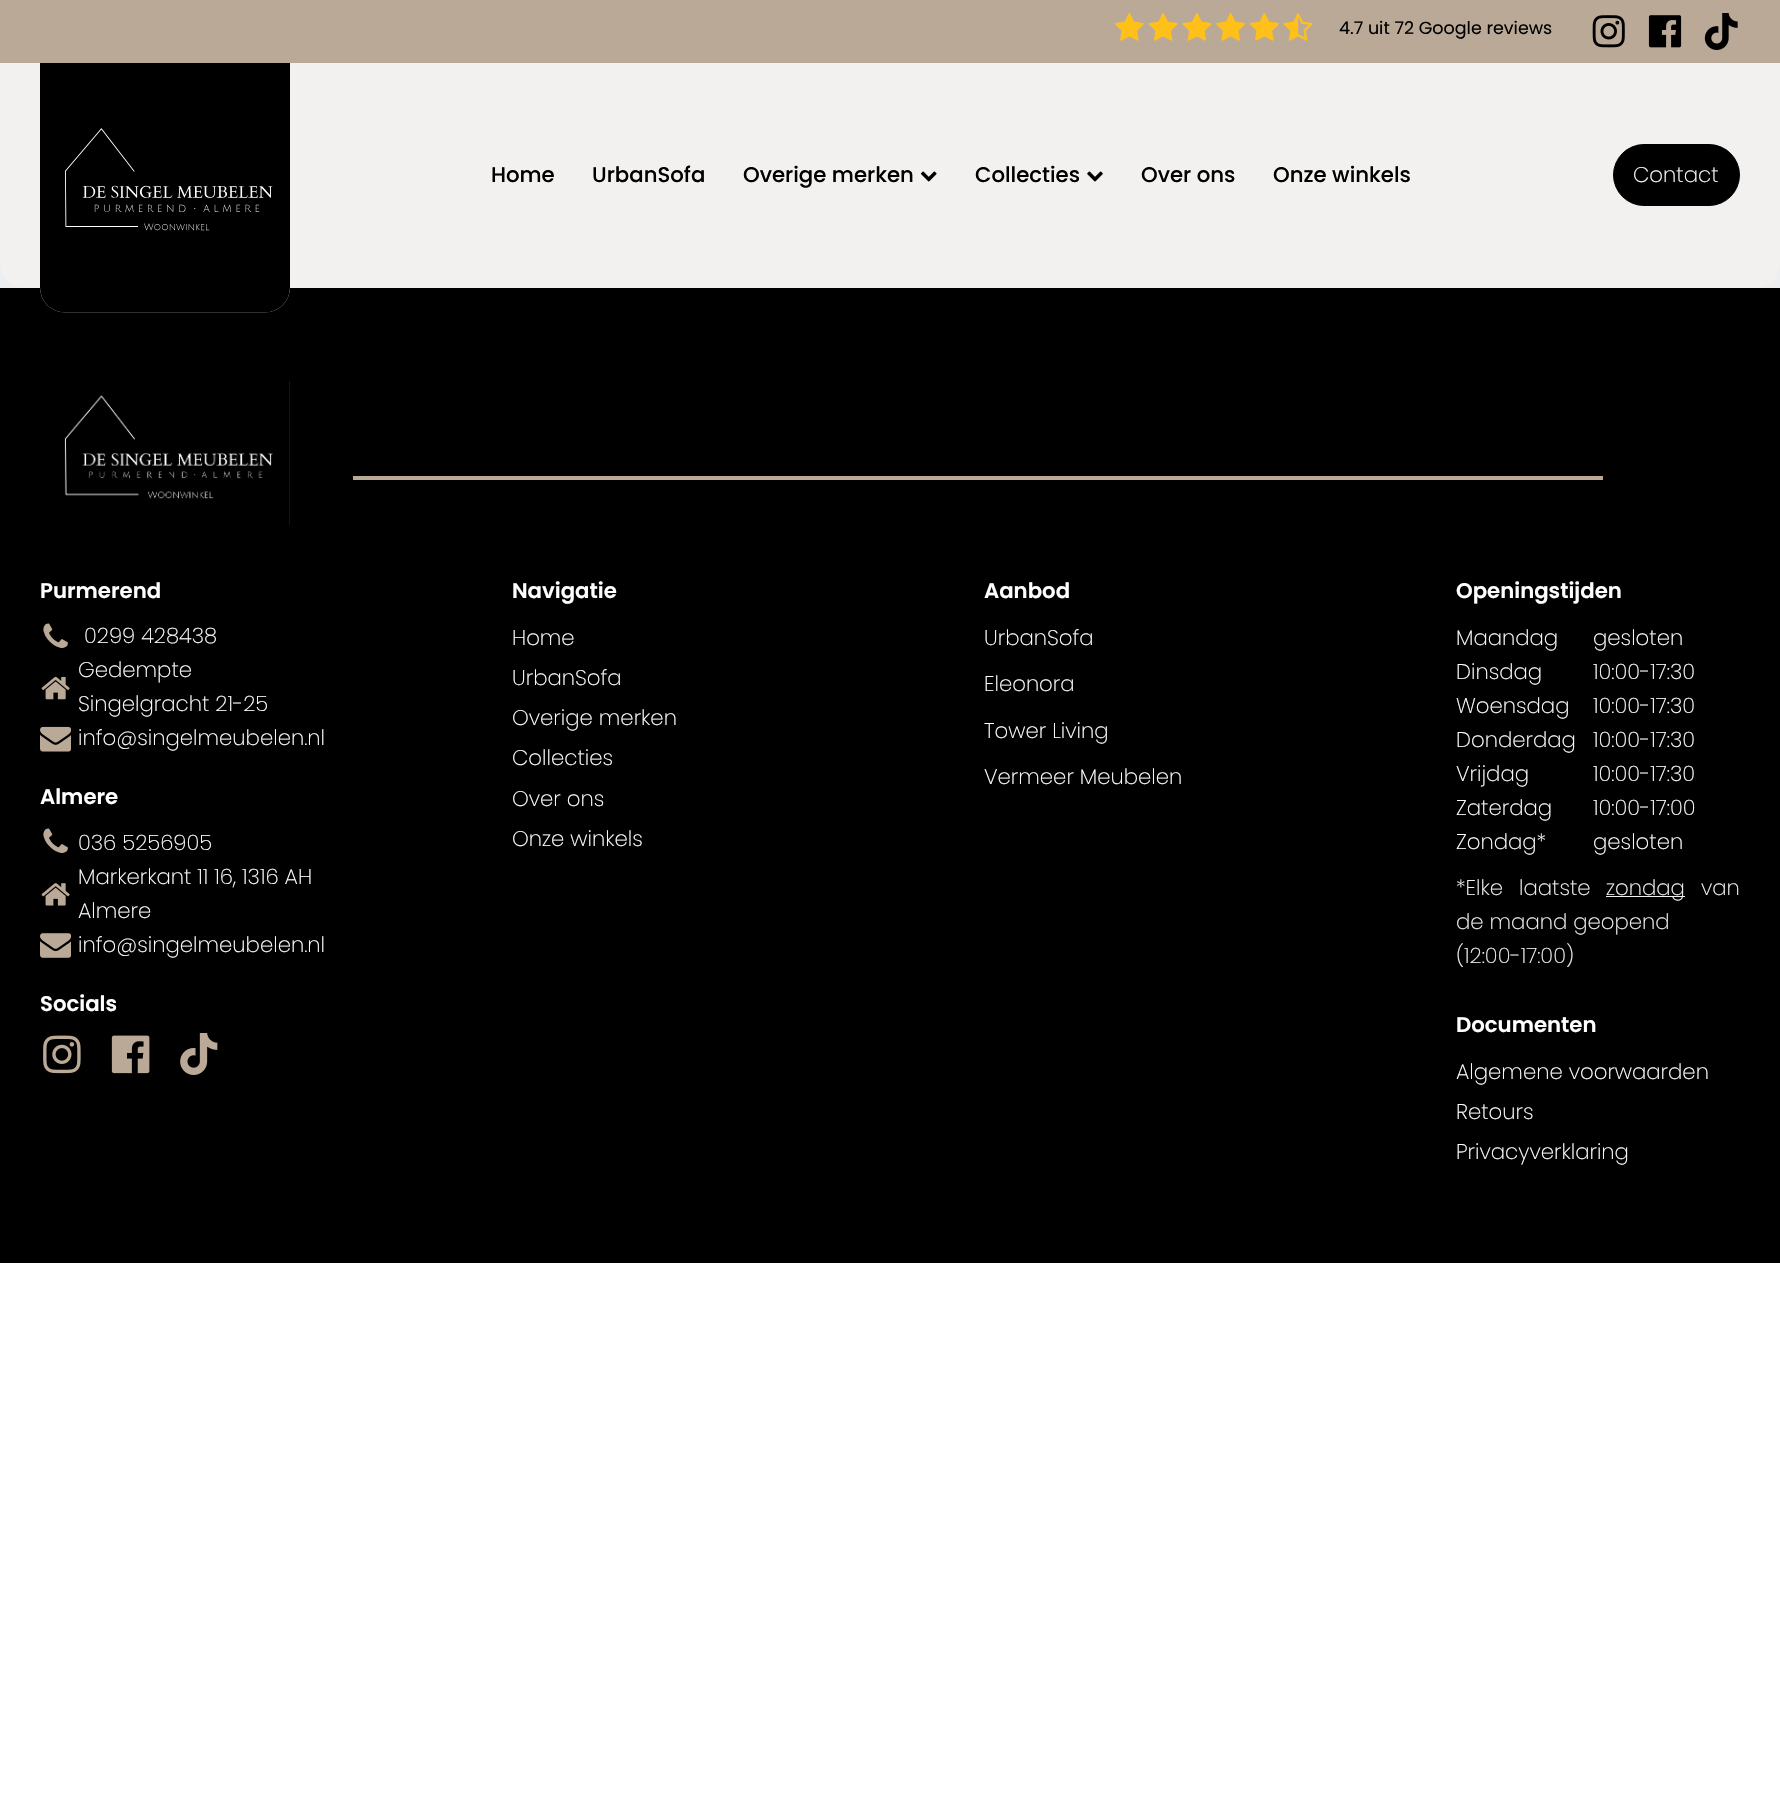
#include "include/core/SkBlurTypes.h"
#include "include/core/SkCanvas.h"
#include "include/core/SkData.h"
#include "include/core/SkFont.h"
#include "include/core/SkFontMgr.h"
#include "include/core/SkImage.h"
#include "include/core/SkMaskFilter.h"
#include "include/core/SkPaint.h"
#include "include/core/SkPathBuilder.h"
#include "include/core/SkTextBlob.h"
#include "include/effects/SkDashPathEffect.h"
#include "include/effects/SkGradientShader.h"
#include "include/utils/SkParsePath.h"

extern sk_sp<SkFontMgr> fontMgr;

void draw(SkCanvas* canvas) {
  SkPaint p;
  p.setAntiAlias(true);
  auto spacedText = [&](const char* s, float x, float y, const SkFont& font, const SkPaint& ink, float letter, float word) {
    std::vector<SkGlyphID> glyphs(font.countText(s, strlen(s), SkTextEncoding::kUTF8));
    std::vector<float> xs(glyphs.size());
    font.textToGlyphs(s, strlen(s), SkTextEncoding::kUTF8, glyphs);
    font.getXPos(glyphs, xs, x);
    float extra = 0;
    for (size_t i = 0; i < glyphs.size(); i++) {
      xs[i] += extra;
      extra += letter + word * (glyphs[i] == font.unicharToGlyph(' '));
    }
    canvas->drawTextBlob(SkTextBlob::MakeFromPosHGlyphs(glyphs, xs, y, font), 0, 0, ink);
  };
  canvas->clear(SK_ColorWHITE);
  p.setColor(SkColorSetRGB(187, 169, 151));
  canvas->drawRect(SkRect::MakeLTRB(0, 0, 1780, 63), p);
  canvas->drawImageRect(SkImages::DeferredFromEncodedData(SkData::MakeFromFileName("images/1.png")), SkRect::MakeLTRB(1114, 13, 1144, 41), SkSamplingOptions());
  canvas->drawImageRect(SkImages::DeferredFromEncodedData(SkData::MakeFromFileName("images/2.png")), SkRect::MakeLTRB(1148, 13, 1178, 41), SkSamplingOptions());
  canvas->drawImageRect(SkImages::DeferredFromEncodedData(SkData::MakeFromFileName("images/3.png")), SkRect::MakeLTRB(1182, 13, 1212, 41), SkSamplingOptions());
  canvas->drawImageRect(SkImages::DeferredFromEncodedData(SkData::MakeFromFileName("images/4.png")), SkRect::MakeLTRB(1216, 13, 1246, 41), SkSamplingOptions());
  canvas->drawImageRect(SkImages::DeferredFromEncodedData(SkData::MakeFromFileName("images/1.png")), SkRect::MakeLTRB(1249, 13, 1279, 41), SkSamplingOptions());
  canvas->drawImageRect(SkImages::DeferredFromEncodedData(SkData::MakeFromFileName("images/5.png")), SkRect::MakeLTRB(1283, 13, 1313, 41), SkSamplingOptions());
  canvas->drawImageRect(SkImages::DeferredFromEncodedData(SkData::MakeFromFileName("images/6.png")), SkRect::MakeLTRB(1592, 15, 1625, 48), SkSamplingOptions());
  canvas->drawImageRect(SkImages::DeferredFromEncodedData(SkData::MakeFromFileName("images/7.png")), SkRect::MakeLTRB(1648, 15, 1682, 48), SkSamplingOptions());
  canvas->drawImageRect(SkImages::DeferredFromEncodedData(SkData::MakeFromFileName("images/8.png")), SkRect::MakeLTRB(1704, 13, 1738, 50), SkSamplingOptions());
  p.setColor(SkColorSetRGB(236, 238, 239));
  canvas->drawRect(SkRect::MakeLTRB(0, 263, 1780, 288), p);
  p.setColor(SkColorSetRGB(242, 241, 240));
  canvas->drawPath(SkPathBuilder().moveTo(0, 63).lineTo(1780, 63).lineTo(1780, 263).cubicTo(1780, 277, 1769, 288, 1755, 288).lineTo(25, 288).cubicTo(11, 288, 0, 277, 0, 263).close().detach(), p);
  p.setColor(SK_ColorBLACK);
  canvas->drawRect(SkRect::MakeLTRB(0, 288, 1780, 1263), p);
  canvas->drawImageRect(SkImages::DeferredFromEncodedData(SkData::MakeFromFileName("images/9.png")), SkRect::MakeLTRB(40, 63, 290, 313), SkSamplingOptions());
  canvas->drawImageRect(SkImages::DeferredFromEncodedData(SkData::MakeFromFileName("images/10.png")), SkRect::MakeLTRB(920, 171, 937, 182), SkSamplingOptions());
  canvas->drawImageRect(SkImages::DeferredFromEncodedData(SkData::MakeFromFileName("images/11.png")), SkRect::MakeLTRB(1087, 171, 1103, 182), SkSamplingOptions());
  canvas->drawRoundRect(SkRect::MakeLTRB(1613.5f, 144.5f, 1739.5f, 205.5f), 30.5f, 30.5f, p);
  p.setStyle(SkPaint::kStroke_Style);
  p.setStrokeWidth(1);
  canvas->drawRoundRect(SkRect::MakeLTRB(1613.5f, 144.5f, 1739.5f, 205.5f), 30.5f, 30.5f, p);
  canvas->drawImageRect(SkImages::DeferredFromEncodedData(SkData::MakeFromFileName("images/12.png")), SkRect::MakeLTRB(64, 381, 290, 525), SkSamplingOptions());
  p.setStyle(SkPaint::kFill_Style);
  p.setColor(SkColorSetRGB(187, 169, 151));
  canvas->drawRect(SkRect::MakeLTRB(353, 476, 1603, 480), p);
  canvas->drawImageRect(SkImages::DeferredFromEncodedData(SkData::MakeFromFileName("images/13.png")), SkRect::MakeLTRB(43, 623, 68, 648), SkSamplingOptions());
  canvas->drawImageRect(SkImages::DeferredFromEncodedData(SkData::MakeFromFileName("images/14.png")), SkRect::MakeLTRB(41, 676, 70, 700), SkSamplingOptions());
  canvas->drawImageRect(SkImages::DeferredFromEncodedData(SkData::MakeFromFileName("images/15.png")), SkRect::MakeLTRB(40, 726, 71, 752), SkSamplingOptions());
  canvas->drawImageRect(SkImages::DeferredFromEncodedData(SkData::MakeFromFileName("images/13.png")), SkRect::MakeLTRB(43, 828, 68, 853), SkSamplingOptions());
  canvas->drawImageRect(SkImages::DeferredFromEncodedData(SkData::MakeFromFileName("images/16.png")), SkRect::MakeLTRB(41, 883, 70, 906), SkSamplingOptions());
  canvas->drawImageRect(SkImages::DeferredFromEncodedData(SkData::MakeFromFileName("images/17.png")), SkRect::MakeLTRB(40, 933, 71, 958), SkSamplingOptions());
  canvas->drawImageRect(SkImages::DeferredFromEncodedData(SkData::MakeFromFileName("images/18.png")), SkRect::MakeLTRB(43, 1035, 81, 1074), SkSamplingOptions());
  canvas->drawImageRect(SkImages::DeferredFromEncodedData(SkData::MakeFromFileName("images/19.png")), SkRect::MakeLTRB(111, 1035, 150, 1074), SkSamplingOptions());
  canvas->drawImageRect(SkImages::DeferredFromEncodedData(SkData::MakeFromFileName("images/20.png")), SkRect::MakeLTRB(180, 1033, 218, 1075), SkSamplingOptions());
  p.setColor(SkColorSetRGB(242, 241, 240));
  canvas->drawRect(SkRect::MakeLTRB(1606, 896, 1685, 897), p);
  SkFont font1(fontMgr->matchFamilyStyle("Poppins", SkFontStyle::Normal()), 17.5f);
  font1.setSubpixel(true);
  p.setColor(SK_ColorBLACK);
  canvas->drawString("4.7 uit 72 Google reviews", 1339, 34, font1, p);
  SkFont font2(fontMgr->matchFamilyStyle("Poppins", SkFontStyle(500, SkFontStyle::kNormal_Width, SkFontStyle::kUpright_Slant)), 21.25f);
  font2.setSubpixel(true);
  canvas->drawString("Home", 491, 182, font2, p);
  canvas->drawString("UrbanSofa", 592, 182, font2, p);
  canvas->drawString("Overige merken", 743, 182, font2, p);
  canvas->drawString("Collecties", 975, 182, font2, p);
  canvas->drawString("Over ons", 1141, 182, font2, p);
  canvas->drawString("Onze winkels", 1273, 182, font2, p);
  SkFont font3(fontMgr->matchFamilyStyle("Poppins", SkFontStyle(200, SkFontStyle::kNormal_Width, SkFontStyle::kUpright_Slant)), 21.25f);
  font3.setSubpixel(true);
  p.setColor(SK_ColorWHITE);
  canvas->drawString("Contact", 1633, 182, font3, p);
  SkFont font4(fontMgr->matchFamilyStyle("Poppins", SkFontStyle(600, SkFontStyle::kNormal_Width, SkFontStyle::kUpright_Slant)), 21.25f);
  font4.setSubpixel(true);
  canvas->drawString("Purmerend", 40, 598, font4, p);
  canvas->drawString("0299 428438", 84, 643, font3, p);
  canvas->drawString("Gedempte", 78, 677, font3, p);
  canvas->drawString("Singelgracht 21-25", 78, 711, font3, p);
  canvas->drawString("info@singelmeubelen.nl", 78, 745, font3, p);
  canvas->drawString("Almere", 40, 804, font4, p);
  canvas->drawString("036 5256905", 78, 850, font3, p);
  canvas->drawString("Markerkant 11 16, 1316 AH", 78, 884, font3, p);
  canvas->drawString("Almere", 78, 918, font3, p);
  canvas->drawString("info@singelmeubelen.nl", 78, 952, font3, p);
  canvas->drawString("Socials", 40, 1011, font4, p);
  canvas->drawString("Navigatie", 512, 598, font4, p);
  canvas->drawString("Home", 512, 645, font3, p);
  canvas->drawString("UrbanSofa", 512, 685, font3, p);
  canvas->drawString("Overige merken", 512, 725, font3, p);
  canvas->drawString("Collecties", 512, 765, font3, p);
  canvas->drawString("Over ons", 512, 806, font3, p);
  canvas->drawString("Onze winkels", 512, 846, font3, p);
  canvas->drawString("Aanbod", 984, 598, font4, p);
  canvas->drawString("UrbanSofa", 984, 645, font3, p);
  canvas->drawString("Eleonora", 984, 691, font3, p);
  canvas->drawString("Tower Living", 984, 738, font3, p);
  canvas->drawString("Vermeer Meubelen", 984, 784, font3, p);
  canvas->drawString("Openingstijden", 1456, 598, font4, p);
  canvas->drawString("Maandag", 1456, 645, font3, p);
  canvas->drawString("Dinsdag", 1456, 679, font3, p);
  canvas->drawString("Woensdag", 1456, 713, font3, p);
  canvas->drawString("Donderdag", 1456, 747, font3, p);
  canvas->drawString("Vrijdag", 1456, 781, font3, p);
  canvas->drawString("Zaterdag", 1456, 815, font3, p);
  canvas->drawString("Zondag*", 1456, 849, font3, p);
  canvas->drawString("gesloten", 1593, 645, font3, p);
  canvas->drawString("10:00-17:30", 1593, 679, font3, p);
  canvas->drawString("10:00-17:30", 1593, 713, font3, p);
  canvas->drawString("10:00-17:30", 1593, 747, font3, p);
  canvas->drawString("10:00-17:30", 1593, 781, font3, p);
  canvas->drawString("10:00-17:00", 1593, 815, font3, p);
  canvas->drawString("gesloten", 1593, 849, font3, p);
  p.setColor(SkColorSetRGB(242, 241, 240));
  spacedText("*Elke laatste", 1456, 895, font3, p, 0, 10);
  canvas->drawString("zondag", 1606, 895, font3, p);
  canvas->drawString("van", 1701, 895, font3, p);
  canvas->drawString("de maand geopend", 1456, 929, font3, p);
  canvas->drawString("(12:00-17:00)", 1456, 963, font3, p);
  p.setColor(SK_ColorWHITE);
  canvas->drawString("Documenten", 1456, 1032, font4, p);
  canvas->drawString("Algemene voorwaarden", 1456, 1079, font3, p);
  canvas->drawString("Retours", 1456, 1119, font3, p);
  canvas->drawString("Privacyverklaring", 1456, 1159, font3, p);
}
